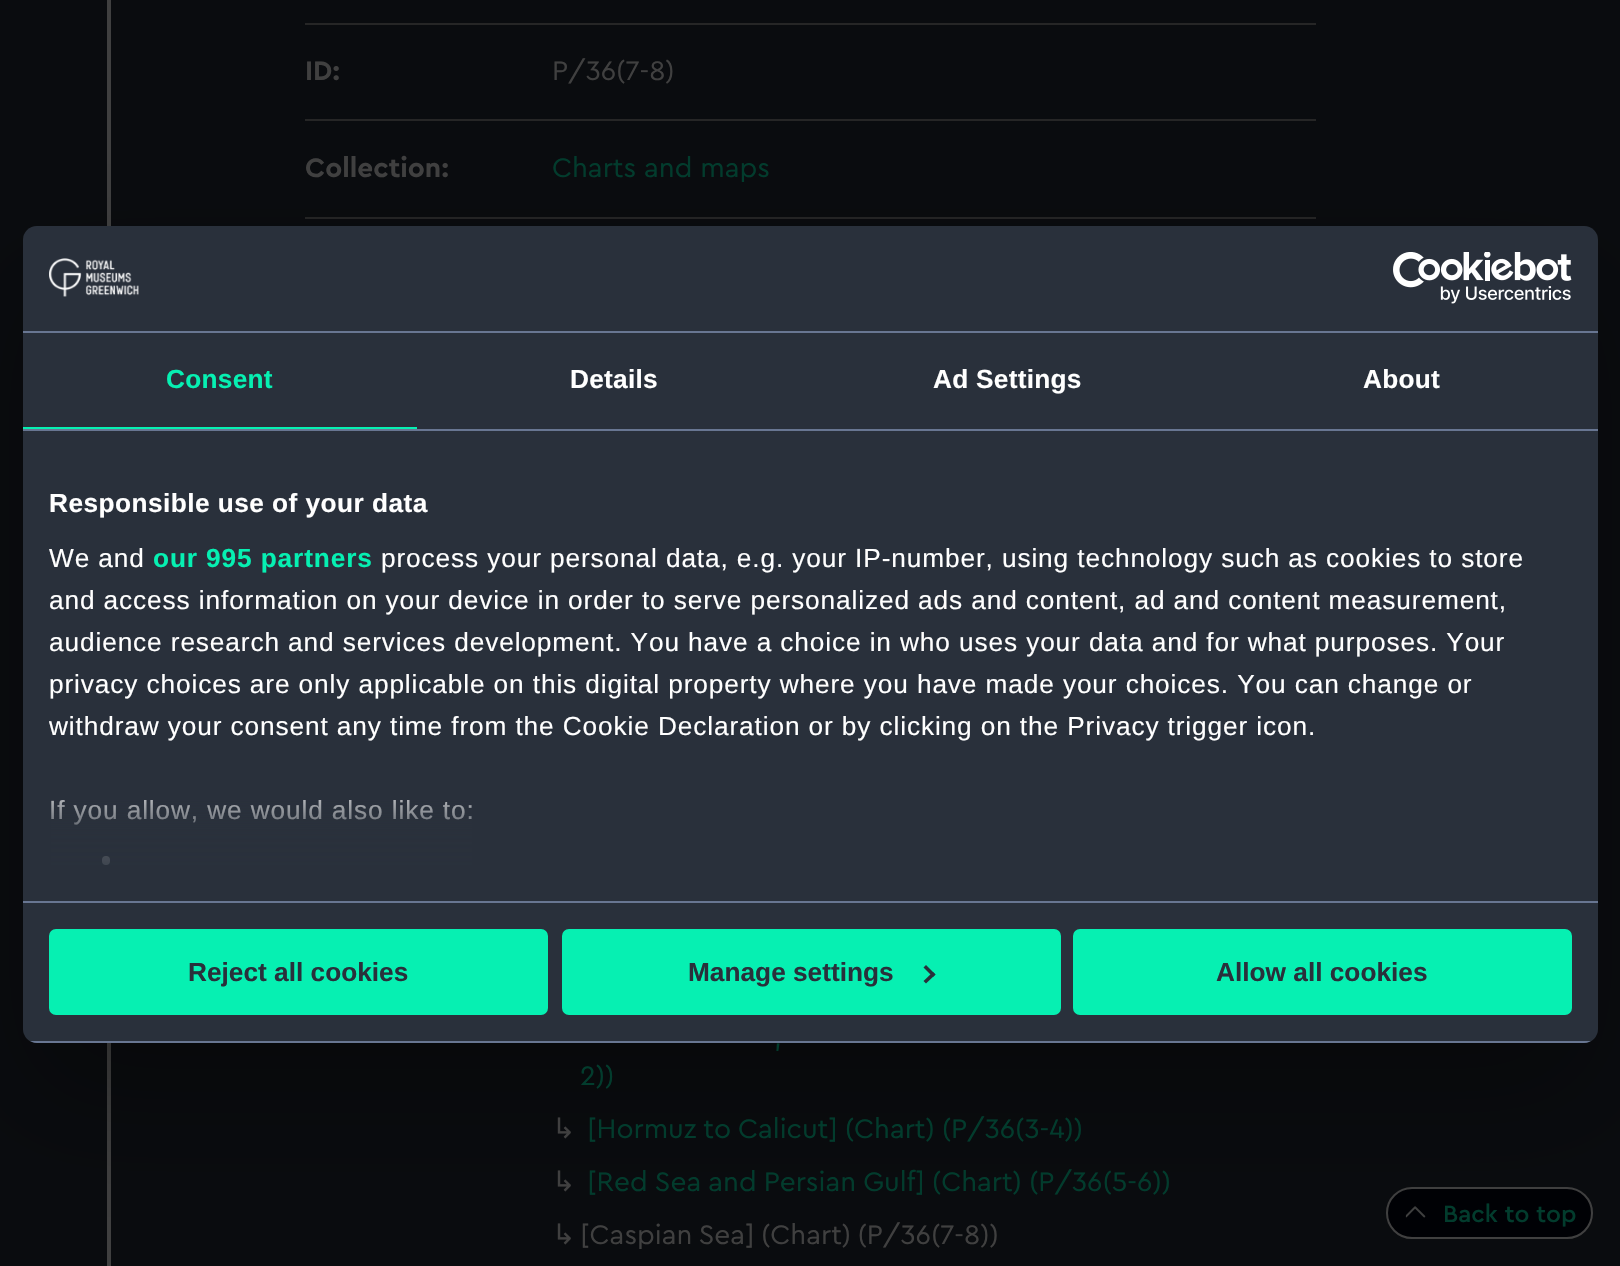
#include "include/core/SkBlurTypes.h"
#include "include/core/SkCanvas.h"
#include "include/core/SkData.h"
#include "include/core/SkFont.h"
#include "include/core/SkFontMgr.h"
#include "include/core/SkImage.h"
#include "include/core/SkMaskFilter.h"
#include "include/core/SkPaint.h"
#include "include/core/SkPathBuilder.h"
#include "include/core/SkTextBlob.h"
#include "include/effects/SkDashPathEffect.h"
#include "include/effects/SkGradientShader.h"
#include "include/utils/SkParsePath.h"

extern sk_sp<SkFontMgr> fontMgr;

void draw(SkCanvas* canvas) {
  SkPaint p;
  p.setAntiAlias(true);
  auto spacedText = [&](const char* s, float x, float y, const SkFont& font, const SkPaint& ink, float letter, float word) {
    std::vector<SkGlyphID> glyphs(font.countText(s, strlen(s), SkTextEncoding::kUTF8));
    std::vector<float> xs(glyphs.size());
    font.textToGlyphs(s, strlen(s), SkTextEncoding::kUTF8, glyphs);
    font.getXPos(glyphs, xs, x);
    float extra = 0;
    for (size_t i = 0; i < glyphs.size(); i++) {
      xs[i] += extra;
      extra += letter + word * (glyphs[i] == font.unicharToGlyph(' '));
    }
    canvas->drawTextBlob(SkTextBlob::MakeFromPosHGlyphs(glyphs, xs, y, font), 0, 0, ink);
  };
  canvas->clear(SkColorSetRGB(10, 12, 15));
  p.setColor(SkColorSetRGB(64, 64, 64));
  canvas->drawRect(SkRect::MakeLTRB(107, 0, 111, 1266), p);
  p.setColor(SkColorSetRGB(38, 38, 38));
  canvas->drawRect(SkRect::MakeLTRB(305, 23, 1316, 25), p);
  canvas->drawRect(SkRect::MakeLTRB(305, 119, 1316, 121), p);
  canvas->drawRect(SkRect::MakeLTRB(305, 217, 1316, 219), p);
  p.setColor(SkColorSetRGB(0, 1, 5));
  canvas->drawRoundRect(SkRect::MakeLTRB(1387, 1188, 1592, 1238), 25, 25, p);
  p.setStyle(SkPaint::kStroke_Style);
  p.setStrokeWidth(2);
  p.setColor(SkColorSetRGB(64, 64, 64));
  canvas->drawRoundRect(SkRect::MakeLTRB(1387, 1188, 1592, 1238), 25, 25, p);
  canvas->drawImageRect(SkImages::DeferredFromEncodedData(SkData::MakeFromFileName("images/1.png")), SkRect::MakeLTRB(1405, 1206, 1426, 1218), SkSamplingOptions());
  p.setStyle(SkPaint::kFill_Style);
  p.setColor(SkColorSetARGB(77, 0, 0, 0));
  p.setMaskFilter(SkMaskFilter::MakeBlur(kNormal_SkBlurStyle, 59.5f));
  canvas->drawRoundRect(SkRect::MakeLTRB(23, 282, 1598, 1099), 14, 14, p);
  p.setMaskFilter(nullptr);
  p.setColor(SkColorSetRGB(41, 48, 59));
  canvas->drawRoundRect(SkRect::MakeLTRB(23, 226, 1598, 1043), 14, 14, p);
  p.setColor(SkColorSetRGB(104, 118, 146));
  canvas->drawRect(SkRect::MakeLTRB(23, 331, 1598, 333), p);
  canvas->drawImageRect(SkImages::DeferredFromEncodedData(SkData::MakeFromFileName("images/2.png")), SkRect::MakeLTRB(49, 258, 139, 297), SkSamplingOptions());
  canvas->drawImageRect(SkImages::DeferredFromEncodedData(SkData::MakeFromFileName("images/3.png")), SkRect::MakeLTRB(1393, 252, 1572, 304), SkSamplingOptions());
  canvas->drawRect(SkRect::MakeLTRB(23, 429, 1598, 431), p);
  p.setColor(SkColorSetRGB(6, 240, 178));
  canvas->drawRect(SkRect::MakeLTRB(23, 427, 417, 429), p);
  p.setColor(SkColorSetRGB(104, 118, 146));
  canvas->drawRect(SkRect::MakeLTRB(23, 901, 1598, 903), p);
  p.setColor(SK_ColorWHITE);
  canvas->drawRoundRect(SkRect::MakeLTRB(102, 856, 110, 865), 4, 4, p);
  canvas->save();
  canvas->clipPath(SkPathBuilder().moveTo(37, 226).lineTo(1584, 226).cubicTo(1591.5f, 226, 1598, 232.5f, 1598, 240).lineTo(1598, 1029).cubicTo(1598, 1036.5f, 1591.5f, 1043, 1584, 1043).lineTo(37, 1043).cubicTo(29.5f, 1043, 23, 1036.5f, 23, 1029).lineTo(23, 240).cubicTo(23, 232.5f, 29.5f, 226, 37, 226).close().detach(), true);
  p.setColor(SkColorSetRGB(104, 118, 146));
  canvas->drawRect(SkRect::MakeLTRB(23, 1041, 1598, 1043), p);
  canvas->restore();
  p.setColor(SkColorSetRGB(6, 240, 178));
  canvas->drawRoundRect(SkRect::MakeLTRB(51, 931, 546, 1013), 5, 5, p);
  p.setStyle(SkPaint::kStroke_Style);
  p.setStrokeWidth(4);
  canvas->drawRoundRect(SkRect::MakeLTRB(51, 931, 546, 1013), 5, 5, p);
  p.setStyle(SkPaint::kFill_Style);
  canvas->drawRoundRect(SkRect::MakeLTRB(564, 931, 1059, 1013), 5, 5, p);
  p.setStyle(SkPaint::kStroke_Style);
  canvas->drawRoundRect(SkRect::MakeLTRB(564, 931, 1059, 1013), 5, 5, p);
  p.setStyle(SkPaint::kFill_Style);
  p.setColor(SkColorSetRGB(41, 48, 59));
  canvas->drawPath(SkPathBuilder().moveTo(926, 965).lineTo(935.5f, 974.5f).lineTo(933, 977).lineTo(923.5f, 967.5f).close().detach(), p);
  canvas->drawPath(SkPathBuilder().moveTo(933, 972).lineTo(935.5f, 974.5f).lineTo(926, 983.5f).lineTo(923.5f, 981).close().detach(), p);
  p.setColor(SkColorSetRGB(6, 240, 178));
  canvas->drawRoundRect(SkRect::MakeLTRB(1075, 931, 1570, 1013), 5, 5, p);
  p.setStyle(SkPaint::kStroke_Style);
  canvas->drawRoundRect(SkRect::MakeLTRB(1075, 931, 1570, 1013), 5, 5, p);
  SkFont font1(fontMgr->matchFamilyStyle("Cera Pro", SkFontStyle::Bold()), 28);
  font1.setSubpixel(true);
  p.setStyle(SkPaint::kFill_Style);
  p.setColor(SkColorSetRGB(64, 64, 64));
  canvas->drawString("ID:", 305, 80, font1, p);
  SkFont font2(fontMgr->matchFamilyStyle("Cera Pro", SkFontStyle::Normal()), 28);
  font2.setSubpixel(true);
  canvas->drawString("P/36(7-8)", 552, 80, font2, p);
  canvas->drawString("Collection:", 305, 177, font1, p);
  p.setColor(SkColorSetRGB(2, 60, 45));
  canvas->drawString("Charts and maps", 552, 177, font2, p);
  canvas->drawString(",", 774, 1046, font2, p);
  canvas->drawString("2))", 580, 1085, font2, p);
  SkFont font3(fontMgr->matchFamilyStyle("DejaVu Sans", SkFontStyle::Normal()), 28);
  font3.setSubpixel(true);
  p.setColor(SkColorSetRGB(64, 64, 64));
  canvas->drawString("↳", 552, 1138, font3, p);
  p.setColor(SkColorSetRGB(2, 60, 45));
  spacedText("[Hormuz to Calicut] (Chart) (P/36(3-4))", 587, 1138, font2, p, 0, -1);
  p.setColor(SkColorSetRGB(64, 64, 64));
  canvas->drawString("↳", 552, 1191, font3, p);
  p.setColor(SkColorSetRGB(2, 60, 45));
  spacedText("[Red Sea and Persian Gulf] (Chart) (P/36(5-6))", 587, 1191, font2, p, 0, -0.75f);
  p.setColor(SkColorSetRGB(64, 64, 64));
  canvas->drawString("↳", 552, 1244, font3, p);
  spacedText("[Caspian Sea] (Chart) (P/36(7-8))", 580, 1244, font2, p, 0, -1.5f);
  SkFont font4(fontMgr->matchFamilyStyle("Cera Pro", SkFontStyle(500, SkFontStyle::kNormal_Width, SkFontStyle::kUpright_Slant)), 24.5f);
  font4.setSubpixel(true);
  p.setColor(SkColorSetRGB(2, 60, 45));
  canvas->drawString("Back to top", 1443, 1222, font4, p);
  SkFont font5(fontMgr->matchFamilyStyle("Liberation Sans", SkFontStyle::Bold()), 26.25f);
  font5.setSubpixel(true);
  p.setColor(SkColorSetRGB(6, 240, 178));
  spacedText("Consent", 166, 388, font5, p, 0.25f, 0);
  p.setColor(SK_ColorWHITE);
  spacedText("Details", 570, 388, font5, p, 0.25f, 0);
  spacedText("Ad Settings", 933, 388, font5, p, 0.25f, 0);
  spacedText("About", 1363, 388, font5, p, 0.25f, 0);
  spacedText("Responsible use of your data", 49, 512, font5, p, 0.45f, 0);
  SkFont font6(fontMgr->matchFamilyStyle("Liberation Sans", SkFontStyle::Normal()), 26.25f);
  font6.setSubpixel(true);
  spacedText("We and", 49, 567, font6, p, 0.88f, 0);
  p.setColor(SkColorSetRGB(6, 240, 178));
  spacedText("our 995 partners", 153, 567, font5, p, 0.88f, 0);
  p.setColor(SK_ColorWHITE);
  spacedText("process your personal data, e.g. your IP-number, using technology such as cookies to store", 381, 567, font6, p, 0.88f, 0);
  spacedText("and access information on your device in order to serve personalized ads and content, ad and content measurement,", 49, 609, font6, p, 0.88f, 0);
  spacedText("audience research and services development. You have a choice in who uses your data and for what purposes. Your", 49, 651, font6, p, 0.88f, 0);
  spacedText("privacy choices are only applicable on this digital property where you have made your choices. You can change or", 49, 693, font6, p, 0.88f, 0);
  spacedText("withdraw your consent any time from the Cookie Declaration or by clicking on the Privacy trigger icon.", 49, 735, font6, p, 0.88f, 0);
  spacedText("If you allow, we would also like to:", 49, 819, font6, p, 0.88f, 0);
  {
    const SkColor colors[] = {SkColorSetRGB(41, 48, 59), SkColorSetARGB(204, 41, 48, 59), SkColorSetARGB(0, 41, 48, 59)};
    const float stops[] = {0, 0.5f, 1};
    const SkPoint ends[] = {{799, 900}, {799, 769}};
    p.setShader(SkGradientShader::MakeLinear(ends, colors, stops, 3, SkTileMode::kClamp));
    p.setAlpha(255);
  }
  canvas->drawRect(SkRect::MakeLTRB(51, 800, 472, 865), p);
  p.setShader(nullptr);
  p.setColor(SkColorSetRGB(41, 48, 59));
  canvas->drawString("Reject all cookies", 188, 981, font5, p);
  canvas->drawString("Manage settings", 688, 981, font5, p);
  canvas->drawString("Allow all cookies", 1216, 981, font5, p);
}
